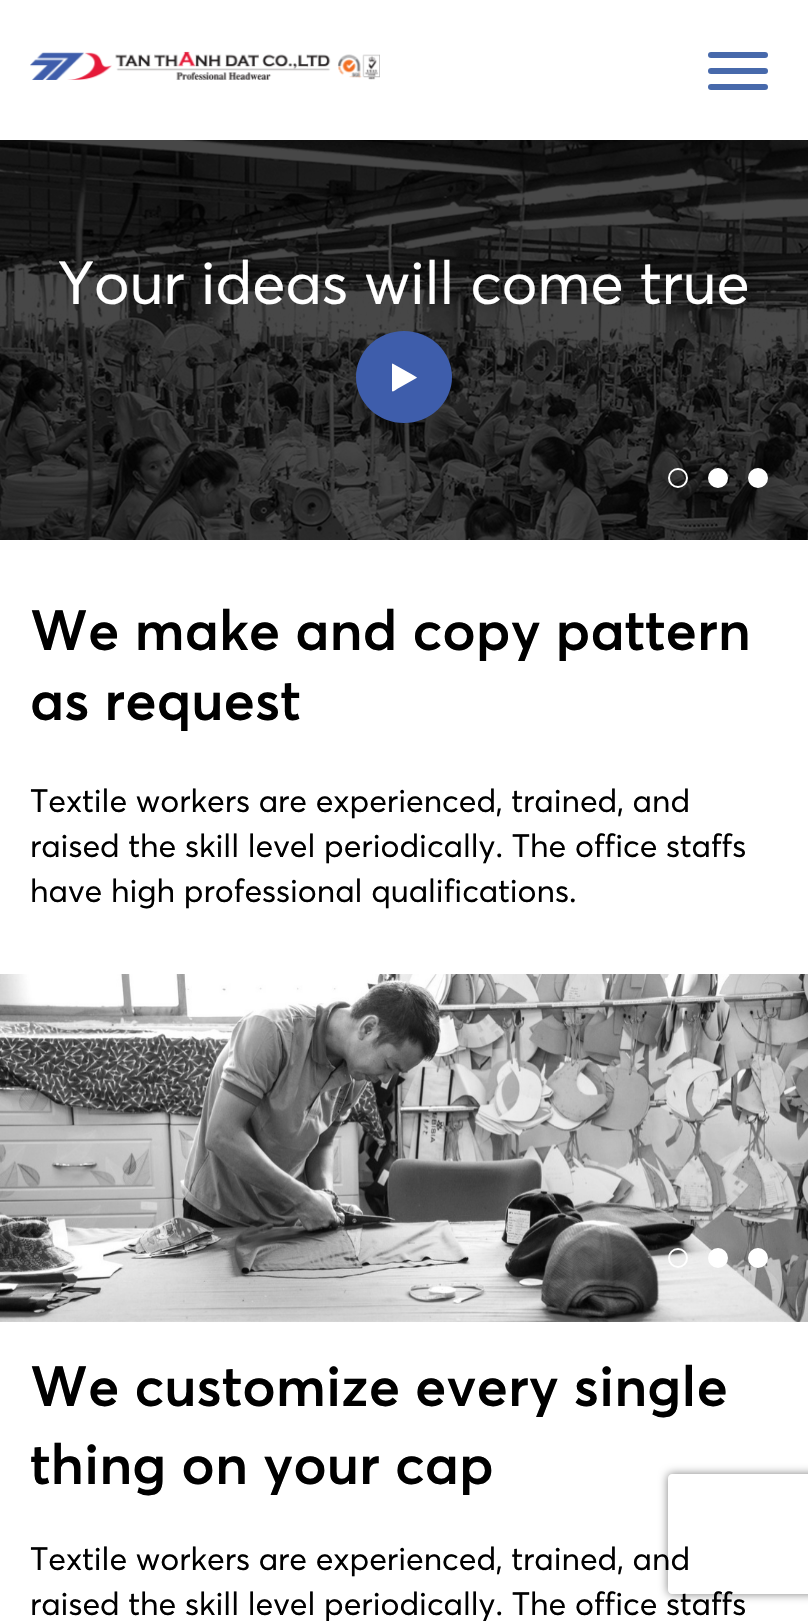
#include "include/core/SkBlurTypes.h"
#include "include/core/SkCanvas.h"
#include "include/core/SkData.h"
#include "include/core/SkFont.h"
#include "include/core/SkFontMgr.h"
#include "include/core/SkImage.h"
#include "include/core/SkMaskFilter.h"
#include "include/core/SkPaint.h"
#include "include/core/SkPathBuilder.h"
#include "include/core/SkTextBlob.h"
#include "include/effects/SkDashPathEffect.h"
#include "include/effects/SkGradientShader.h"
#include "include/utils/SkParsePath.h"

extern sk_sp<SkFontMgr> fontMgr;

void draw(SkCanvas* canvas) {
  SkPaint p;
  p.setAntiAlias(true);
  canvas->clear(SK_ColorWHITE);
  canvas->drawImageRect(SkImages::DeferredFromEncodedData(SkData::MakeFromFileName("images/1.png")), SkRect::MakeLTRB(30, 51, 380, 80), SkSamplingOptions());
  p.setColor(SkColorSetRGB(71, 105, 171));
  canvas->drawRoundRect(SkRect::MakeLTRB(708, 68, 768, 74), 3, 3, p);
  canvas->drawRoundRect(SkRect::MakeLTRB(708, 52, 768, 58), 3, 3, p);
  canvas->drawRoundRect(SkRect::MakeLTRB(708, 84, 768, 90), 3, 3, p);
  canvas->drawImageRect(SkImages::DeferredFromEncodedData(SkData::MakeFromFileName("images/2.png")), SkRect::MakeLTRB(0, 140, 808, 540), SkSamplingOptions());
  p.setStyle(SkPaint::kStroke_Style);
  p.setStrokeWidth(2);
  p.setColor(SK_ColorWHITE);
  canvas->drawCircle(678, 478, 9, p);
  p.setStyle(SkPaint::kFill_Style);
  canvas->drawCircle(718, 478, 9, p);
  p.setStyle(SkPaint::kStroke_Style);
  canvas->drawCircle(718, 478, 9, p);
  p.setStyle(SkPaint::kFill_Style);
  canvas->drawCircle(758, 478, 9, p);
  p.setStyle(SkPaint::kStroke_Style);
  canvas->drawCircle(758, 478, 9, p);
  p.setStyle(SkPaint::kFill_Style);
  p.setColor(SkColorSetRGB(62, 93, 171));
  canvas->drawOval(SkRect::MakeLTRB(356, 331, 452, 423), p);
  p.setColor(SK_ColorWHITE);
  canvas->drawPath(SkPathBuilder().moveTo(416.5f, 378).lineTo(397, 389).cubicTo(396.5f, 389.5f, 393, 392.5f, 392, 391).lineTo(392, 364).lineTo(392.5f, 363.5f).lineTo(413, 375).lineTo(417, 377.5f).close().detach(), p);
  canvas->drawImageRect(SkImages::DeferredFromEncodedData(SkData::MakeFromFileName("images/3.png")), SkRect::MakeLTRB(0, 974, 808, 1322), SkSamplingOptions());
  p.setStyle(SkPaint::kStroke_Style);
  canvas->drawCircle(678, 1258, 9, p);
  p.setStyle(SkPaint::kFill_Style);
  canvas->drawCircle(718, 1258, 9, p);
  p.setStyle(SkPaint::kStroke_Style);
  canvas->drawCircle(718, 1258, 9, p);
  p.setStyle(SkPaint::kFill_Style);
  canvas->drawCircle(758, 1258, 9, p);
  p.setStyle(SkPaint::kStroke_Style);
  canvas->drawCircle(758, 1258, 9, p);
  canvas->save();
  canvas->clipPath(SkPathBuilder(SkPathFillType::kEvenOdd).moveTo(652, 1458).lineTo(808, 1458).lineTo(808, 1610).lineTo(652, 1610).close().moveTo(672, 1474).lineTo(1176, 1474).cubicTo(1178, 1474, 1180, 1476, 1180, 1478).lineTo(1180, 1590).cubicTo(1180, 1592, 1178, 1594, 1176, 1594).lineTo(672, 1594).cubicTo(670, 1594, 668, 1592, 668, 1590).lineTo(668, 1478).cubicTo(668, 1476, 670, 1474, 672, 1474).close().detach(), true);
  p.setStyle(SkPaint::kFill_Style);
  p.setColor(SkColorSetRGB(128, 128, 128));
  p.setMaskFilter(SkMaskFilter::MakeBlur(kNormal_SkBlurStyle, 5));
  canvas->drawRoundRect(SkRect::MakeLTRB(668, 1474, 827, 1594), 4, 4, p);
  p.setMaskFilter(nullptr);
  canvas->restore();
  SkFont font1(fontMgr->matchFamilyStyle("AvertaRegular", SkFontStyle::Normal()), 60);
  font1.setSubpixel(true);
  p.setColor(SK_ColorWHITE);
  canvas->drawString("Your ideas will come true", 58, 304, font1, p);
  SkFont font2(fontMgr->matchFamilyStyle("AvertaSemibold", SkFontStyle(600, SkFontStyle::kNormal_Width, SkFontStyle::kUpright_Slant)), 56);
  font2.setSubpixel(true);
  p.setColor(SK_ColorBLACK);
  canvas->drawString("We make and copy pattern", 30, 650, font2, p);
  canvas->drawString("as request", 30, 720, font2, p);
  SkFont font3(fontMgr->matchFamilyStyle("AvertaRegular", SkFontStyle::Normal()), 32);
  font3.setSubpixel(true);
  canvas->drawString("Textile workers are experienced, trained, and", 30, 812, font3, p);
  canvas->drawString("raised the skill level periodically. The office staffs", 30, 857, font3, p);
  canvas->drawString("have high professional qualifications.", 30, 902, font3, p);
  canvas->drawString("We customize every single", 30, 1406, font2, p);
  canvas->drawString("thing on your cap", 30, 1484, font2, p);
  canvas->drawString("Textile workers are experienced, trained, and", 30, 1570, font3, p);
  canvas->drawString("raised the skill level periodically. The office staffs", 30, 1615, font3, p);
}
